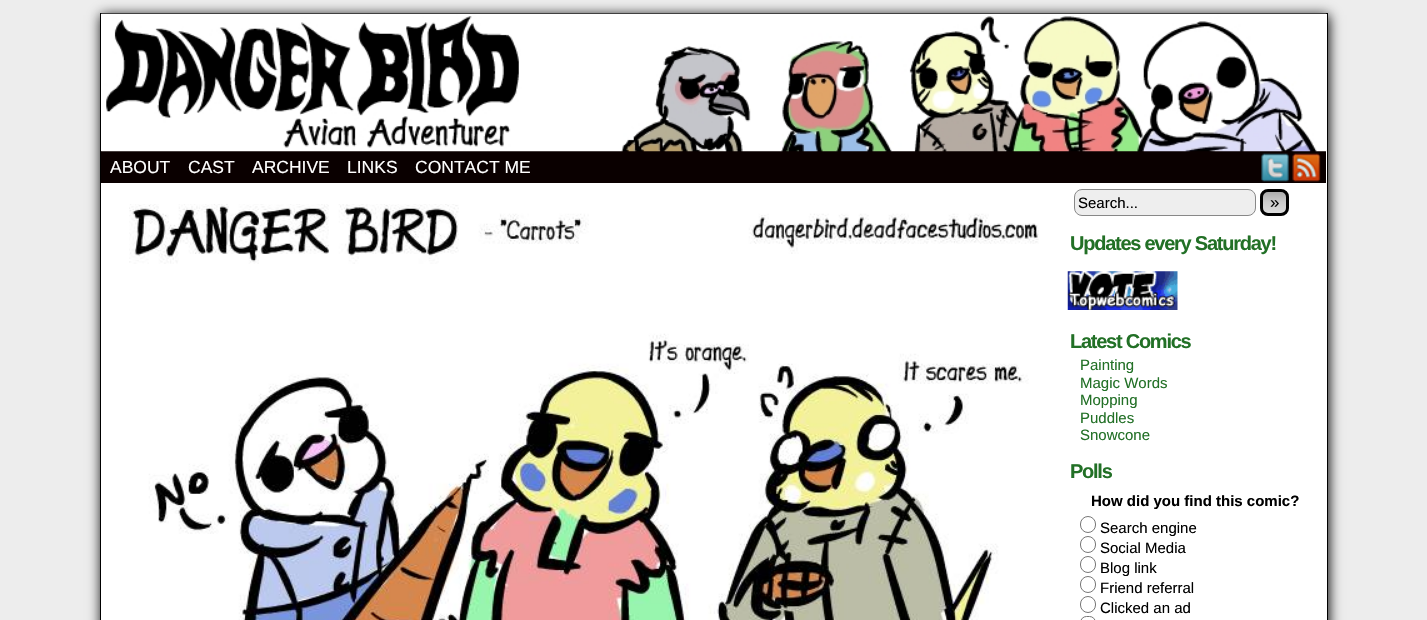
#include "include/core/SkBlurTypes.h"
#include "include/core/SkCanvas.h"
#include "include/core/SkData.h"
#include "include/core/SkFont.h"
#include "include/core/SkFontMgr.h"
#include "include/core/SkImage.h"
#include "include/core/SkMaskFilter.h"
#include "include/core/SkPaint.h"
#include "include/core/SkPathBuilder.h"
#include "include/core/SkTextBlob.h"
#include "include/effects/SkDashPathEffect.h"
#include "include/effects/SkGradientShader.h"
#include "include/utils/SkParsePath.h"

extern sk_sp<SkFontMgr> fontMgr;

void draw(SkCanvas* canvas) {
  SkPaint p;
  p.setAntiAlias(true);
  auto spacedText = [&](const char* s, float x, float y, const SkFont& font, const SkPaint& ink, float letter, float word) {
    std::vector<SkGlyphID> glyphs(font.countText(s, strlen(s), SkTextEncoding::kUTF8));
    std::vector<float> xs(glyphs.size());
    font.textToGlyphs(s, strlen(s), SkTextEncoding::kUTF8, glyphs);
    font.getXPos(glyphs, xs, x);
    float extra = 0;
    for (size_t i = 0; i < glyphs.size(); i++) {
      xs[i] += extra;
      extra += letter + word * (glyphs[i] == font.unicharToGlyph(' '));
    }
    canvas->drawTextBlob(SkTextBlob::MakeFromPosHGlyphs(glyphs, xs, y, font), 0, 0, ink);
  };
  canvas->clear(SkColorSetRGB(237, 237, 237));
  p.setColor(SK_ColorBLACK);
  p.setMaskFilter(SkMaskFilter::MakeBlur(kNormal_SkBlurStyle, 6));
  canvas->drawRect(SkRect::MakeLTRB(101, 15, 1329, 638), p);
  p.setMaskFilter(nullptr);
  p.setColor(SK_ColorWHITE);
  canvas->drawRect(SkRect::MakeLTRB(100.5f, 13.5f, 1327.5f, 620.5f), p);
  p.setStyle(SkPaint::kStroke_Style);
  p.setStrokeWidth(1);
  p.setColor(SK_ColorBLACK);
  canvas->drawRect(SkRect::MakeLTRB(100.5f, 13.5f, 1327.5f, 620.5f), p);
  p.setStyle(SkPaint::kFill_Style);
  p.setColor(SkColorSetRGB(10, 0, 0));
  canvas->drawRect(SkRect::MakeLTRB(101, 151, 1326, 183), p);
  canvas->drawImageRect(SkImages::DeferredFromEncodedData(SkData::MakeFromFileName("images/1.png")), SkRect::MakeLTRB(101, 13, 1327, 152), SkSamplingOptions());
  canvas->drawImageRect(SkImages::DeferredFromEncodedData(SkData::MakeFromFileName("images/2.png")), SkRect::MakeLTRB(1261, 153, 1289, 182), SkSamplingOptions());
  canvas->drawImageRect(SkImages::DeferredFromEncodedData(SkData::MakeFromFileName("images/3.png")), SkRect::MakeLTRB(1292, 153, 1321, 182), SkSamplingOptions());
  canvas->drawImageRect(SkImages::DeferredFromEncodedData(SkData::MakeFromFileName("images/4.png")), SkRect::MakeLTRB(129, 204, 1039, 620), SkSamplingOptions());
  p.setColor(SkColorSetRGB(238, 238, 238));
  canvas->drawRoundRect(SkRect::MakeLTRB(1074.5f, 189.5f, 1255.5f, 215.5f), 7.5f, 7.5f, p);
  p.setStyle(SkPaint::kStroke_Style);
  p.setColor(SkColorSetRGB(136, 136, 136));
  canvas->drawRoundRect(SkRect::MakeLTRB(1074.5f, 189.5f, 1255.5f, 215.5f), 7.5f, 7.5f, p);
  canvas->save();
  canvas->clipPath(SkPathBuilder().moveTo(1268, 189).lineTo(1281, 189).cubicTo(1285.5f, 189, 1289, 192.5f, 1289, 197).lineTo(1289, 208).cubicTo(1289, 212.5f, 1285.5f, 216, 1281, 216).lineTo(1268, 216).cubicTo(1263.5f, 216, 1260, 212.5f, 1260, 208).lineTo(1260, 197).cubicTo(1260, 192.5f, 1263.5f, 189, 1268, 189).close().detach(), true);
  p.setStyle(SkPaint::kFill_Style);
  {
    const SkColor colors[] = {SkColorSetRGB(170, 170, 170), SkColorSetRGB(204, 204, 204), SkColorSetRGB(221, 221, 221)};
    const float stops[] = {0, 0.5f, 1};
    const SkPoint ends[] = {{1274, 191}, {1274, 214}};
    p.setShader(SkGradientShader::MakeLinear(ends, colors, stops, 3, SkTileMode::kClamp));
    p.setAlpha(255);
  }
  canvas->drawRect(SkRect::MakeLTRB(1260, 191, 1289, 214), p);
  canvas->restore();
  p.setStyle(SkPaint::kStroke_Style);
  p.setStrokeWidth(3);
  p.setShader(nullptr);
  p.setColor(SK_ColorBLACK);
  canvas->drawRoundRect(SkRect::MakeLTRB(1261.5f, 190.5f, 1287.5f, 214.5f), 6.5f, 6.5f, p);
  canvas->drawImageRect(SkImages::DeferredFromEncodedData(SkData::MakeFromFileName("images/5.png")), SkRect::MakeLTRB(1067, 271, 1178, 310), SkSamplingOptions());
  p.setStrokeWidth(1);
  p.setColor(SkColorSetRGB(118, 118, 118));
  canvas->drawRoundRect(SkRect::MakeLTRB(1080.5f, 516.5f, 1095.5f, 532.5f), 7.5f, 7.5f, p);
  canvas->drawRoundRect(SkRect::MakeLTRB(1080.5f, 536.5f, 1095.5f, 552.5f), 7.5f, 7.5f, p);
  canvas->drawRoundRect(SkRect::MakeLTRB(1080.5f, 556.5f, 1095.5f, 572.5f), 7.5f, 7.5f, p);
  canvas->drawRoundRect(SkRect::MakeLTRB(1080.5f, 576.5f, 1095.5f, 592.5f), 7.5f, 7.5f, p);
  canvas->drawRoundRect(SkRect::MakeLTRB(1080.5f, 596.5f, 1095.5f, 612.5f), 7.5f, 7.5f, p);
  canvas->drawRoundRect(SkRect::MakeLTRB(1080.5f, 616.5f, 1095.5f, 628.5f), 7.5f, 7.5f, p);
  SkFont font1(fontMgr->matchFamilyStyle("Liberation Sans", SkFontStyle::Normal()), 17.5f);
  font1.setSubpixel(true);
  p.setStyle(SkPaint::kFill_Style);
  p.setColor(SK_ColorWHITE);
  canvas->drawString("ABOUT", 110, 173, font1, p);
  canvas->drawString("CAST", 188, 173, font1, p);
  canvas->drawString("ARCHIVE", 252, 173, font1, p);
  canvas->drawString("LINKS", 347, 173, font1, p);
  canvas->drawString("CONTACT ME", 415, 173, font1, p);
  SkFont font2(fontMgr->matchFamilyStyle("Liberation Sans", SkFontStyle::Normal()), 15);
  font2.setSubpixel(true);
  p.setColor(SK_ColorBLACK);
  canvas->drawString("Search...", 1078, 208, font2, p);
  SkFont font3(fontMgr->matchFamilyStyle("Liberation Sans", SkFontStyle::Normal()), 17);
  font3.setSubpixel(true);
  canvas->drawString("»", 1270, 208, font3, p);
  SkFont font4(fontMgr->matchFamilyStyle("Liberation Sans", SkFontStyle::Bold()), 20);
  font4.setSubpixel(true);
  p.setColor(SkColorSetRGB(34, 112, 38));
  spacedText("Updates every Saturday!", 1070, 250, font4, p, -1.25f, 0);
  spacedText("Latest Comics", 1070, 348, font4, p, -1.25f, 0);
  canvas->drawString("Painting", 1080, 370, font2, p);
  canvas->drawString("Magic Words", 1080, 388, font2, p);
  canvas->drawString("Mopping", 1080, 405, font2, p);
  canvas->drawString("Puddles", 1080, 423, font2, p);
  canvas->drawString("Snowcone", 1080, 440, font2, p);
  spacedText("Polls", 1070, 478, font4, p, -1.25f, 0);
  SkFont font5(fontMgr->matchFamilyStyle("Liberation Sans", SkFontStyle::Bold()), 15);
  font5.setSubpixel(true);
  p.setColor(SK_ColorBLACK);
  canvas->drawString("How did you find this comic?", 1091, 506, font5, p);
  canvas->drawString("Search engine", 1100, 533, font2, p);
  canvas->drawString("Social Media", 1100, 553, font2, p);
  canvas->drawString("Blog link", 1100, 573, font2, p);
  canvas->drawString("Friend referral", 1100, 593, font2, p);
  canvas->drawString("Clicked an ad", 1100, 613, font2, p);
}
